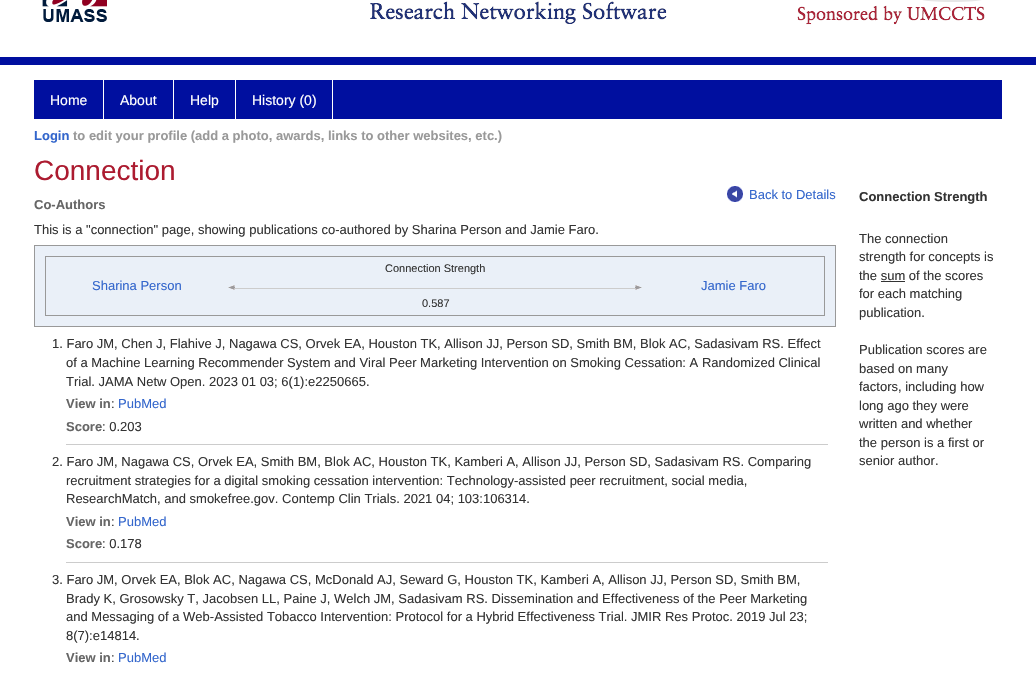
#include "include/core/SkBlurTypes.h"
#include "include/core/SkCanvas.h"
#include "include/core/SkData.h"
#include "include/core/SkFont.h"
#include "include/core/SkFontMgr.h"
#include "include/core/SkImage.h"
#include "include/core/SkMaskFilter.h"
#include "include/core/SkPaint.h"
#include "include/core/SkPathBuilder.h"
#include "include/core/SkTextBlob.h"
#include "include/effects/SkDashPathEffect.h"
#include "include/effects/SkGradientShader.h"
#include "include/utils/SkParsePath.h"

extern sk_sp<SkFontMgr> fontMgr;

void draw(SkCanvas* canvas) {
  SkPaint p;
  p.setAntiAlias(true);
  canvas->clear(SK_ColorWHITE);
  p.setColor(SkColorSetRGB(0, 15, 159));
  canvas->drawRect(SkRect::MakeLTRB(0, 57, 1036, 65), p);
  canvas->drawImageRect(SkImages::DeferredFromEncodedData(SkData::MakeFromFileName("images/1.png")), SkRect::MakeLTRB(42, 0, 985, 25), SkSamplingOptions());
  canvas->drawRect(SkRect::MakeLTRB(34, 80, 1002, 119), p);
  p.setColor(SK_ColorWHITE);
  canvas->drawRect(SkRect::MakeLTRB(103, 80, 104, 119), p);
  canvas->drawRect(SkRect::MakeLTRB(173, 80, 174, 119), p);
  canvas->drawRect(SkRect::MakeLTRB(235, 80, 236, 119), p);
  canvas->drawRect(SkRect::MakeLTRB(332, 80, 333, 119), p);
  canvas->drawImageRect(SkImages::DeferredFromEncodedData(SkData::MakeFromFileName("images/2.png")), SkRect::MakeLTRB(727, 186, 743, 202), SkSamplingOptions());
  p.setColor(SkColorSetRGB(234, 240, 248));
  canvas->drawRect(SkRect::MakeLTRB(34.5f, 245.5f, 835.5f, 326.5f), p);
  p.setStyle(SkPaint::kStroke_Style);
  p.setStrokeWidth(1);
  p.setColor(SkColorSetRGB(153, 153, 153));
  canvas->drawRect(SkRect::MakeLTRB(34.5f, 245.5f, 835.5f, 326.5f), p);
  canvas->drawRect(SkRect::MakeLTRB(45.5f, 256.5f, 824.5f, 315.5f), p);
  canvas->drawImageRect(SkImages::DeferredFromEncodedData(SkData::MakeFromFileName("images/3.png")), SkRect::MakeLTRB(228, 285, 235, 290), SkSamplingOptions());
  p.setStyle(SkPaint::kFill_Style);
  p.setColor(SkColorSetRGB(204, 204, 204));
  canvas->drawRect(SkRect::MakeLTRB(235, 288, 635, 289), p);
  canvas->drawImageRect(SkImages::DeferredFromEncodedData(SkData::MakeFromFileName("images/4.png")), SkRect::MakeLTRB(635, 285, 642, 290), SkSamplingOptions());
  canvas->drawRect(SkRect::MakeLTRB(66, 444, 828, 445), p);
  canvas->drawRect(SkRect::MakeLTRB(66, 562, 828, 563), p);
  p.setColor(SkColorSetRGB(51, 51, 51));
  canvas->drawRect(SkRect::MakeLTRB(881, 281, 905, 282), p);
  SkFont font1(fontMgr->matchFamilyStyle("Liberation Sans", SkFontStyle::Normal()), 14);
  font1.setSubpixel(true);
  p.setColor(SK_ColorWHITE);
  canvas->drawString("Home", 50, 105, font1, p);
  canvas->drawString("About", 120, 105, font1, p);
  canvas->drawString("Help", 190, 105, font1, p);
  canvas->drawString("History (0)", 252, 105, font1, p);
  SkFont font2(fontMgr->matchFamilyStyle("Liberation Sans", SkFontStyle::Bold()), 13);
  font2.setSubpixel(true);
  p.setColor(SkColorSetRGB(51, 102, 204));
  canvas->drawString("Login", 34, 140, font2, p);
  p.setColor(SkColorSetRGB(153, 153, 153));
  canvas->drawString("to edit your profile (add a photo, awards, links to other websites, etc.)", 73, 140, font2, p);
  SkFont font3(fontMgr->matchFamilyStyle("Liberation Sans", SkFontStyle::Normal()), 28);
  font3.setSubpixel(true);
  p.setColor(SkColorSetRGB(172, 27, 48));
  canvas->drawString("Connection", 34, 180, font3, p);
  SkFont font4(fontMgr->matchFamilyStyle("Liberation Sans", SkFontStyle::Normal()), 13);
  font4.setSubpixel(true);
  p.setColor(SkColorSetRGB(51, 102, 204));
  canvas->drawString("Back to Details", 749, 199, font4, p);
  p.setColor(SkColorSetRGB(102, 102, 102));
  canvas->drawString("Co-Authors", 34, 209, font2, p);
  p.setColor(SkColorSetRGB(51, 51, 51));
  canvas->drawString("This is a \"connection\" page, showing publications co-authored by Sharina Person and Jamie Faro.", 34, 234, font4, p);
  p.setColor(SkColorSetRGB(51, 102, 204));
  canvas->drawString("Sharina Person", 92, 290, font4, p);
  SkFont font5(fontMgr->matchFamilyStyle("Liberation Sans", SkFontStyle::Normal()), 11);
  font5.setSubpixel(true);
  p.setColor(SkColorSetRGB(51, 51, 51));
  canvas->drawString("Connection Strength", 385, 272, font5, p);
  canvas->drawString("0.587", 422, 307, font5, p);
  p.setColor(SkColorSetRGB(51, 102, 204));
  canvas->drawString("Jamie Faro", 701, 290, font4, p);
  p.setColor(SkColorSetRGB(51, 51, 51));
  canvas->drawString("1. Faro JM, Chen J, Flahive J, Nagawa CS, Orvek EA, Houston TK, Allison JJ, Person SD, Smith BM, Blok AC, Sadasivam RS. Effect", 52, 348, font4, p);
  canvas->drawString("of a Machine Learning Recommender System and Viral Peer Marketing Intervention on Smoking Cessation: A Randomized Clinical", 66, 367, font4, p);
  canvas->drawString("Trial. JAMA Netw Open. 2023 01 03; 6(1):e2250665.", 66, 386, font4, p);
  p.setColor(SkColorSetRGB(102, 102, 102));
  canvas->drawString("View in", 66, 408, font2, p);
  p.setColor(SkColorSetRGB(51, 51, 51));
  canvas->drawString(":", 111, 408, font4, p);
  p.setColor(SkColorSetRGB(51, 102, 204));
  canvas->drawString("PubMed", 118, 408, font4, p);
  p.setColor(SkColorSetRGB(102, 102, 102));
  canvas->drawString("Score", 66, 431, font2, p);
  p.setColor(SkColorSetRGB(51, 51, 51));
  canvas->drawString(": 0.203", 102, 431, font4, p);
  canvas->drawString("2. Faro JM, Nagawa CS, Orvek EA, Smith BM, Blok AC, Houston TK, Kamberi A, Allison JJ, Person SD, Sadasivam RS. Comparing", 52, 466, font4, p);
  canvas->drawString("recruitment strategies for a digital smoking cessation intervention: Technology-assisted peer recruitment, social media,", 66, 485, font4, p);
  canvas->drawString("ResearchMatch, and smokefree.gov. Contemp Clin Trials. 2021 04; 103:106314.", 66, 503, font4, p);
  p.setColor(SkColorSetRGB(102, 102, 102));
  canvas->drawString("View in", 66, 526, font2, p);
  p.setColor(SkColorSetRGB(51, 51, 51));
  canvas->drawString(":", 111, 526, font4, p);
  p.setColor(SkColorSetRGB(51, 102, 204));
  canvas->drawString("PubMed", 118, 526, font4, p);
  p.setColor(SkColorSetRGB(102, 102, 102));
  canvas->drawString("Score", 66, 548, font2, p);
  p.setColor(SkColorSetRGB(51, 51, 51));
  canvas->drawString(": 0.178", 102, 548, font4, p);
  canvas->drawString("3. Faro JM, Orvek EA, Blok AC, Nagawa CS, McDonald AJ, Seward G, Houston TK, Kamberi A, Allison JJ, Person SD, Smith BM,", 52, 584, font4, p);
  canvas->drawString("Brady K, Grosowsky T, Jacobsen LL, Paine J, Welch JM, Sadasivam RS. Dissemination and Effectiveness of the Peer Marketing", 66, 603, font4, p);
  canvas->drawString("and Messaging of a Web-Assisted Tobacco Intervention: Protocol for a Hybrid Effectiveness Trial. JMIR Res Protoc. 2019 Jul 23;", 66, 621, font4, p);
  canvas->drawString("8(7):e14814.", 66, 640, font4, p);
  p.setColor(SkColorSetRGB(102, 102, 102));
  canvas->drawString("View in", 66, 662, font2, p);
  p.setColor(SkColorSetRGB(51, 51, 51));
  canvas->drawString(":", 111, 662, font4, p);
  p.setColor(SkColorSetRGB(51, 102, 204));
  canvas->drawString("PubMed", 118, 662, font4, p);
  p.setColor(SkColorSetRGB(51, 51, 51));
  canvas->drawString("Connection Strength", 859, 201, font2, p);
  canvas->drawString("The connection", 859, 243, font4, p);
  canvas->drawString("strength for concepts is", 859, 261, font4, p);
  canvas->drawString("the sum of the scores", 859, 280, font4, p);
  canvas->drawString("for each matching", 859, 298, font4, p);
  canvas->drawString("publication.", 859, 317, font4, p);
  canvas->drawString("Publication scores are", 859, 354, font4, p);
  canvas->drawString("based on many", 859, 373, font4, p);
  canvas->drawString("factors, including how", 859, 391, font4, p);
  canvas->drawString("long ago they were", 859, 410, font4, p);
  canvas->drawString("written and whether", 859, 428, font4, p);
  canvas->drawString("the person is a first or", 859, 447, font4, p);
  canvas->drawString("senior author.", 859, 465, font4, p);
}
